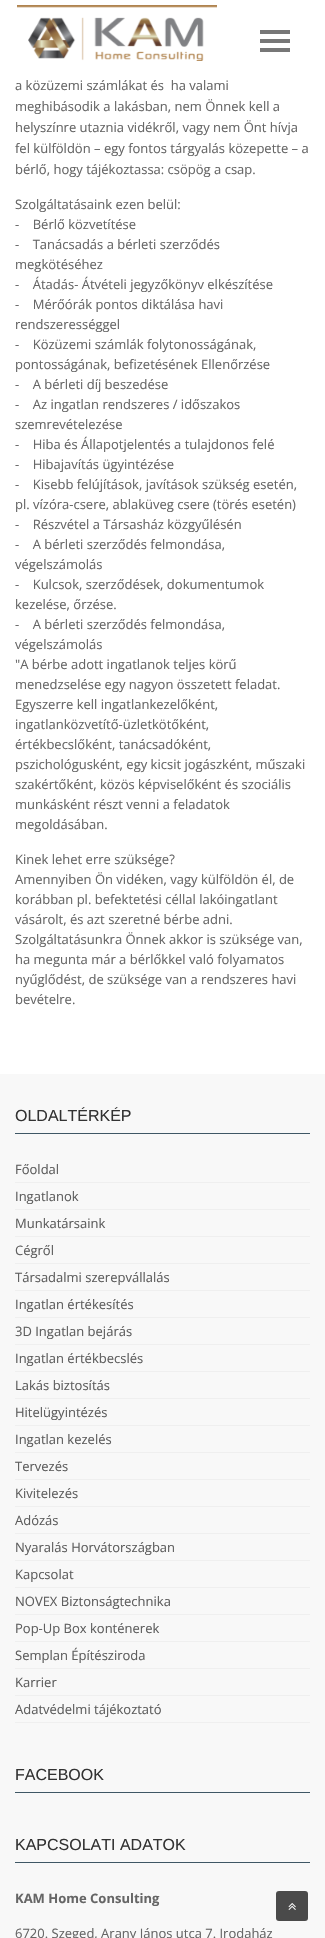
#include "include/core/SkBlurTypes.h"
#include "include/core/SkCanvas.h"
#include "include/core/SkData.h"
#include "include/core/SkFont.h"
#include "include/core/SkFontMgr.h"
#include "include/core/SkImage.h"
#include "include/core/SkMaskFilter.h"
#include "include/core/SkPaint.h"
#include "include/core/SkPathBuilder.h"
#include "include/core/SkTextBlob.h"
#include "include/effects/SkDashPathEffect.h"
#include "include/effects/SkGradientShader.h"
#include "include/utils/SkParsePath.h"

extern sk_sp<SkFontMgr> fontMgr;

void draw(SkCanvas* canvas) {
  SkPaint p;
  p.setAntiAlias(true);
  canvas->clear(SK_ColorWHITE);
  canvas->drawImageRect(SkImages::DeferredFromEncodedData(SkData::MakeFromFileName("images/1.png")), SkRect::MakeLTRB(17, 5, 217, 61), SkSamplingOptions());
  p.setColor(SkColorSetRGB(119, 119, 119));
  canvas->drawRect(SkRect::MakeLTRB(260, 30, 290, 34), p);
  canvas->drawRect(SkRect::MakeLTRB(260, 39, 290, 43), p);
  canvas->drawRect(SkRect::MakeLTRB(260, 48, 290, 52), p);
  p.setColor(SkColorSetRGB(248, 248, 248));
  canvas->drawRect(SkRect::MakeLTRB(0, 1074, 325, 1938), p);
  p.setColor(SkColorSetRGB(63, 87, 101));
  canvas->drawRect(SkRect::MakeLTRB(15, 1133, 310, 1134), p);
  p.setColor(SkColorSetRGB(239, 239, 239));
  canvas->drawRect(SkRect::MakeLTRB(15, 1182, 310, 1183), p);
  canvas->drawRect(SkRect::MakeLTRB(15, 1209, 310, 1210), p);
  canvas->drawRect(SkRect::MakeLTRB(15, 1236, 310, 1237), p);
  canvas->drawRect(SkRect::MakeLTRB(15, 1263, 310, 1264), p);
  canvas->drawRect(SkRect::MakeLTRB(15, 1290, 310, 1291), p);
  canvas->drawRect(SkRect::MakeLTRB(15, 1317, 310, 1318), p);
  canvas->drawRect(SkRect::MakeLTRB(15, 1344, 310, 1345), p);
  canvas->drawRect(SkRect::MakeLTRB(15, 1371, 310, 1372), p);
  canvas->drawRect(SkRect::MakeLTRB(15, 1398, 310, 1399), p);
  canvas->drawRect(SkRect::MakeLTRB(15, 1425, 310, 1426), p);
  canvas->drawRect(SkRect::MakeLTRB(15, 1452, 310, 1453), p);
  canvas->drawRect(SkRect::MakeLTRB(15, 1479, 310, 1480), p);
  canvas->drawRect(SkRect::MakeLTRB(15, 1506, 310, 1507), p);
  canvas->drawRect(SkRect::MakeLTRB(15, 1533, 310, 1534), p);
  canvas->drawRect(SkRect::MakeLTRB(15, 1560, 310, 1561), p);
  canvas->drawRect(SkRect::MakeLTRB(15, 1587, 310, 1588), p);
  canvas->drawRect(SkRect::MakeLTRB(15, 1614, 310, 1615), p);
  canvas->drawRect(SkRect::MakeLTRB(15, 1641, 310, 1642), p);
  canvas->drawRect(SkRect::MakeLTRB(15, 1668, 310, 1669), p);
  canvas->drawRect(SkRect::MakeLTRB(15, 1695, 310, 1696), p);
  canvas->drawRect(SkRect::MakeLTRB(15, 1722, 310, 1723), p);
  p.setColor(SkColorSetRGB(63, 87, 101));
  canvas->drawRect(SkRect::MakeLTRB(15, 1792, 310, 1793), p);
  canvas->drawRect(SkRect::MakeLTRB(15, 1862, 310, 1863), p);
  p.setColor(SkColorSetRGB(74, 74, 74));
  canvas->drawRoundRect(SkRect::MakeLTRB(276, 1891, 308, 1921), 3, 3, p);
  canvas->drawImageRect(SkImages::DeferredFromEncodedData(SkData::MakeFromFileName("images/2.png")), SkRect::MakeLTRB(288, 1903, 296, 1910), SkSamplingOptions());
  SkFont font1(fontMgr->matchFamilyStyle("Open Sans", SkFontStyle::Normal()), 13);
  font1.setSubpixel(true);
  p.setColor(SkColorSetRGB(102, 102, 102));
  canvas->drawString("a közüzemi számlákat és  ha valami", 15, 90, font1, p);
  canvas->drawString("meghibásodik a lakásban, nem Önnek kell a", 15, 111, font1, p);
  canvas->drawString("helyszínre utaznia vidékről, vagy nem Önt hívja", 15, 132, font1, p);
  canvas->drawString("fel külföldön – egy fontos tárgyalás közepette – a", 15, 153, font1, p);
  canvas->drawString("bérlő, hogy tájékoztassa: csöpög a csap.", 15, 174, font1, p);
  canvas->drawString("Szolgáltatásaink ezen belül:", 15, 209, font1, p);
  canvas->drawString("-    Bérlő közvetítése", 15, 229, font1, p);
  canvas->drawString("-    Tanácsadás a bérleti szerződés", 15, 249, font1, p);
  canvas->drawString("megkötéséhez", 15, 269, font1, p);
  canvas->drawString("-    Átadás- Átvételi jegyzőkönyv elkészítése", 15, 289, font1, p);
  canvas->drawString("-    Mérőórák pontos diktálása havi", 15, 309, font1, p);
  canvas->drawString("rendszerességgel", 15, 329, font1, p);
  canvas->drawString("-    Közüzemi számlák folytonosságának,", 15, 349, font1, p);
  canvas->drawString("pontosságának, befizetésének Ellenőrzése", 15, 369, font1, p);
  canvas->drawString("-    A bérleti díj beszedése", 15, 389, font1, p);
  canvas->drawString("-    Az ingatlan rendszeres / időszakos", 15, 409, font1, p);
  canvas->drawString("szemrevételezése", 15, 429, font1, p);
  canvas->drawString("-    Hiba és Állapotjelentés a tulajdonos felé", 15, 449, font1, p);
  canvas->drawString("-    Hibajavítás ügyintézése", 15, 469, font1, p);
  canvas->drawString("-    Kisebb felújítások, javítások szükség esetén,", 15, 489, font1, p);
  canvas->drawString("pl. vízóra-csere, ablaküveg csere (törés esetén)", 15, 509, font1, p);
  canvas->drawString("-    Részvétel a Társasház közgyűlésén", 15, 529, font1, p);
  canvas->drawString("-    A bérleti szerződés felmondása,", 15, 549, font1, p);
  canvas->drawString("végelszámolás", 15, 569, font1, p);
  canvas->drawString("-    Kulcsok, szerződések, dokumentumok", 15, 589, font1, p);
  canvas->drawString("kezelése, őrzése.", 15, 609, font1, p);
  canvas->drawString("-    A bérleti szerződés felmondása,", 15, 629, font1, p);
  canvas->drawString("végelszámolás", 15, 649, font1, p);
  canvas->drawString("\"A bérbe adott ingatlanok teljes körű", 15, 669, font1, p);
  canvas->drawString("menedzselése egy nagyon összetett feladat.", 15, 689, font1, p);
  canvas->drawString("Egyszerre kell ingatlankezelőként,", 15, 709, font1, p);
  canvas->drawString("ingatlanközvetítő-üzletkötőként,", 15, 729, font1, p);
  canvas->drawString("értékbecslőként, tanácsadóként,", 15, 749, font1, p);
  canvas->drawString("pszichológusként, egy kicsit jogászként, műszaki", 15, 769, font1, p);
  canvas->drawString("szakértőként, közös képviselőként és szociális", 15, 789, font1, p);
  canvas->drawString("munkásként részt venni a feladatok", 15, 809, font1, p);
  canvas->drawString("megoldásában.", 15, 829, font1, p);
  canvas->drawString("Kinek lehet erre szüksége?", 15, 864, font1, p);
  canvas->drawString("Amennyiben Ön vidéken, vagy külföldön él, de", 15, 884, font1, p);
  canvas->drawString("korábban pl. befektetési céllal lakóingatlant", 15, 904, font1, p);
  canvas->drawString("vásárolt, és azt szeretné bérbe adni.", 15, 924, font1, p);
  canvas->drawString("Szolgáltatásunkra Önnek akkor is szüksége van,", 15, 944, font1, p);
  canvas->drawString("ha megunta már a bérlőkkel való folyamatos", 15, 964, font1, p);
  canvas->drawString("nyűglődést, de szüksége van a rendszeres havi", 15, 984, font1, p);
  canvas->drawString("bevételre.", 15, 1004, font1, p);
  SkFont font2(fontMgr->matchFamilyStyle("Liberation Sans", SkFontStyle::Normal()), 16);
  font2.setSubpixel(true);
  p.setColor(SkColorSetRGB(51, 51, 51));
  canvas->drawString("OLDALTÉRKÉP", 15, 1121, font2, p);
  p.setColor(SkColorSetRGB(94, 94, 94));
  canvas->drawString("Főoldal", 15, 1174, font1, p);
  canvas->drawString("Ingatlanok", 15, 1201, font1, p);
  canvas->drawString("Munkatársaink", 15, 1228, font1, p);
  canvas->drawString("Cégről", 15, 1255, font1, p);
  canvas->drawString("Társadalmi szerepvállalás", 15, 1282, font1, p);
  canvas->drawString("Ingatlan értékesítés", 15, 1309, font1, p);
  canvas->drawString("3D Ingatlan bejárás", 15, 1336, font1, p);
  canvas->drawString("Ingatlan értékbecslés", 15, 1363, font1, p);
  canvas->drawString("Lakás biztosítás", 15, 1390, font1, p);
  canvas->drawString("Hitelügyintézés", 15, 1417, font1, p);
  canvas->drawString("Ingatlan kezelés", 15, 1444, font1, p);
  canvas->drawString("Tervezés", 15, 1471, font1, p);
  canvas->drawString("Kivitelezés", 15, 1498, font1, p);
  canvas->drawString("Adózás", 15, 1525, font1, p);
  canvas->drawString("Nyaralás Horvátországban", 15, 1552, font1, p);
  canvas->drawString("Kapcsolat", 15, 1579, font1, p);
  canvas->drawString("NOVEX Biztonságtechnika", 15, 1606, font1, p);
  canvas->drawString("Pop-Up Box konténerek", 15, 1633, font1, p);
  canvas->drawString("Semplan Építésziroda", 15, 1660, font1, p);
  canvas->drawString("Karrier", 15, 1687, font1, p);
  canvas->drawString("Adatvédelmi tájékoztató", 15, 1714, font1, p);
  p.setColor(SkColorSetRGB(51, 51, 51));
  canvas->drawString("FACEBOOK", 15, 1780, font2, p);
  canvas->drawString("KAPCSOLATI ADATOK", 15, 1850, font2, p);
  SkFont font3(fontMgr->matchFamilyStyle("Open Sans", SkFontStyle::Bold()), 13);
  font3.setSubpixel(true);
  p.setColor(SkColorSetRGB(102, 102, 102));
  canvas->drawString("KAM Home Consulting", 15, 1903, font3, p);
  canvas->drawString("6720. Szeged, Arany János utca 7. Irodaház", 15, 1938, font1, p);
}
